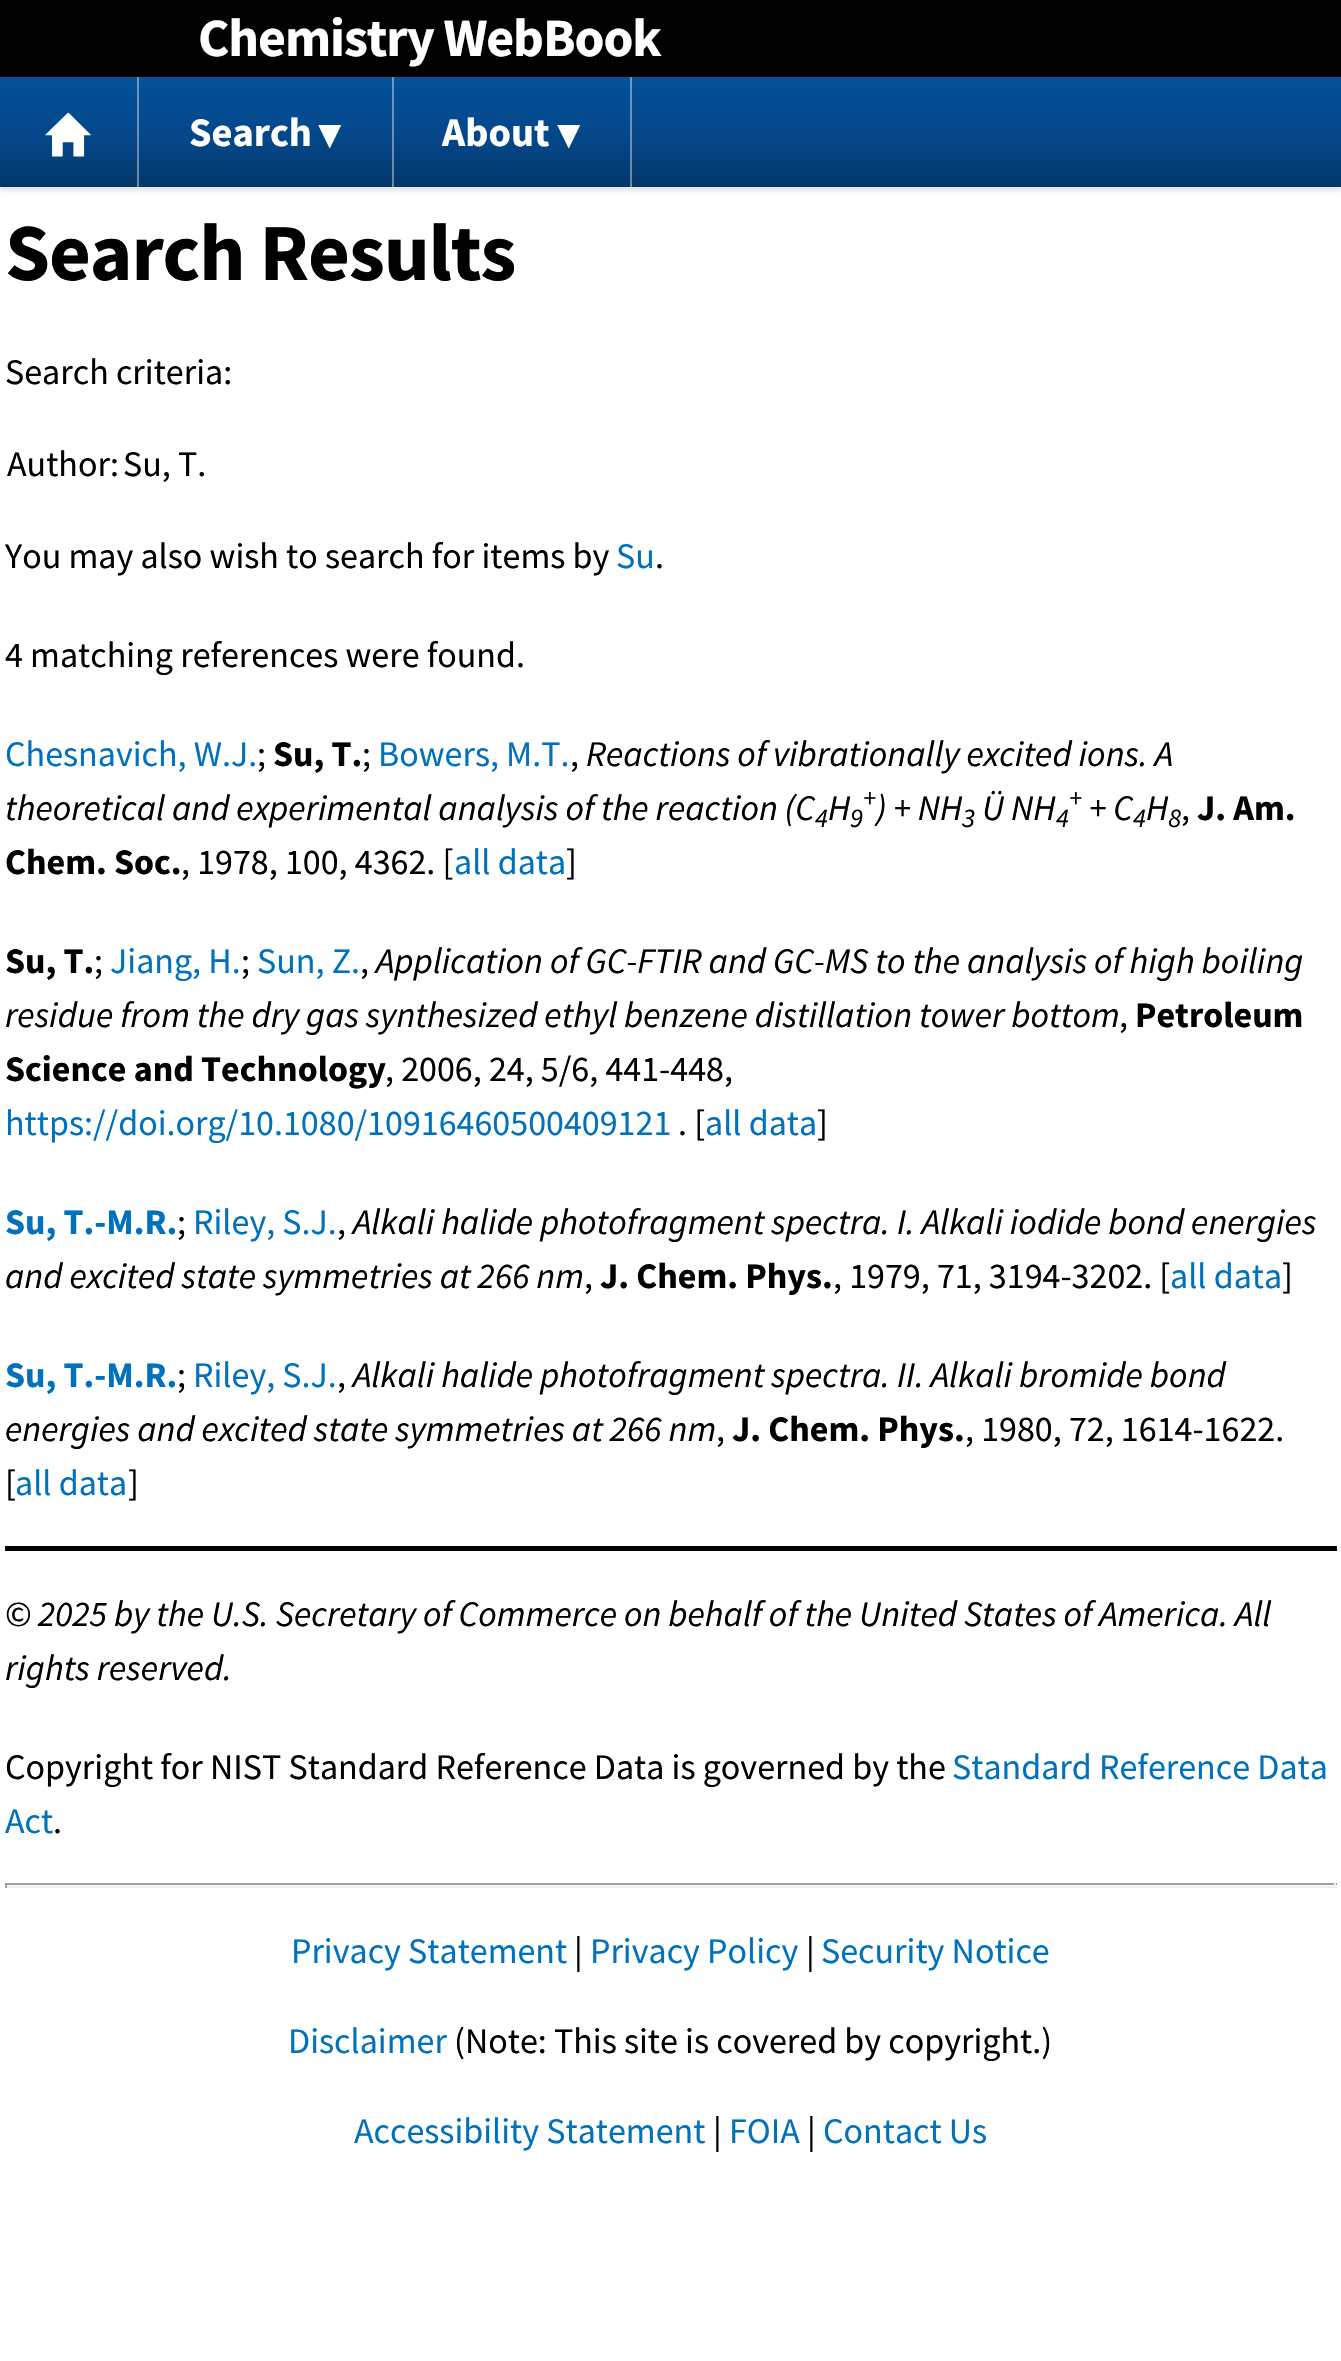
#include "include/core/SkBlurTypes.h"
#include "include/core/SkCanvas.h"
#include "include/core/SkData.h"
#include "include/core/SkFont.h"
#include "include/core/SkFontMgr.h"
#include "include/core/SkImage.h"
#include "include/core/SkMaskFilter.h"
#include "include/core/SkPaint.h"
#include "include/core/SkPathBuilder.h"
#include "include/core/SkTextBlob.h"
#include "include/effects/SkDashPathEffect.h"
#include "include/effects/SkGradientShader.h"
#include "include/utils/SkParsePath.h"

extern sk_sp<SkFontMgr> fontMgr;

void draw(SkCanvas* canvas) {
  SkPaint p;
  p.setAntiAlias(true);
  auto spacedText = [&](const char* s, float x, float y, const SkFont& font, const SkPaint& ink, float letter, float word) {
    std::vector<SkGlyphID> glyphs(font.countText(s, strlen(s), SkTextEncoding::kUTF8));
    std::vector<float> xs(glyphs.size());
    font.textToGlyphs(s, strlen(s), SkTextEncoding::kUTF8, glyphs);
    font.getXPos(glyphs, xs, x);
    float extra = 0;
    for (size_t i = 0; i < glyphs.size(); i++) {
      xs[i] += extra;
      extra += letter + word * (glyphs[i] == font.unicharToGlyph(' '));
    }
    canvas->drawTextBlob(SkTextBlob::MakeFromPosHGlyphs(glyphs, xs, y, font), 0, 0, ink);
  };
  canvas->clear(SK_ColorWHITE);
  p.setColor(SkColorSetARGB(26, 0, 0, 0));
  p.setMaskFilter(SkMaskFilter::MakeBlur(kNormal_SkBlurStyle, 2));
  canvas->drawRect(SkRect::MakeLTRB(0, 81, 1341, 191), p);
  p.setMaskFilter(nullptr);
  p.setColor(SK_ColorBLACK);
  canvas->drawRect(SkRect::MakeLTRB(0, 0, 1341, 77), p);
  {
    const SkColor colors[] = {SkColorSetRGB(4, 81, 155), SkColorSetRGB(4, 70, 135), SkColorSetRGB(3, 55, 105)};
    const float stops[] = {0, 0.6f, 1};
    const SkPoint ends[] = {{671, 76}, {671, 187}};
    p.setShader(SkGradientShader::MakeLinear(ends, colors, stops, 3, SkTileMode::kClamp));
    p.setAlpha(255);
  }
  canvas->drawRect(SkRect::MakeLTRB(0, 77, 1341, 187), p);
  p.setShader(nullptr);
  p.setColor(SkColorSetARGB(102, 255, 255, 255));
  canvas->drawRect(SkRect::MakeLTRB(137, 77, 139, 187), p);
  canvas->drawImageRect(SkImages::DeferredFromEncodedData(SkData::MakeFromFileName("images/1.png")), SkRect::MakeLTRB(45, 112, 91, 157), SkSamplingOptions());
  canvas->drawRect(SkRect::MakeLTRB(392, 77, 394, 187), p);
  canvas->drawRect(SkRect::MakeLTRB(630, 77, 632, 187), p);
  p.setColor(SK_ColorBLACK);
  canvas->drawRect(SkRect::MakeLTRB(5, 1546, 1337, 1551), p);
  p.setColor(SkColorSetRGB(159, 159, 159));
  canvas->drawRect(SkRect::MakeLTRB(5, 1883, 1337, 1885), p);
  p.setColor(SkColorSetRGB(238, 238, 238));
  canvas->drawRect(SkRect::MakeLTRB(1334, 1883, 1336, 1888), p);
  canvas->drawRect(SkRect::MakeLTRB(5, 1886, 1337, 1888), p);
  p.setColor(SkColorSetRGB(159, 159, 159));
  canvas->drawRect(SkRect::MakeLTRB(5, 1883, 7, 1888), p);
  SkFont font1(fontMgr->matchFamilyStyle("Source Sans Pro", SkFontStyle::Bold()), 54);
  font1.setSubpixel(true);
  p.setColor(SK_ColorWHITE);
  spacedText("Chemistry WebBook", 198, 56, font1, p, -1.1f, 0);
  SkFont font2(fontMgr->matchFamilyStyle("Source Sans Pro", SkFontStyle::Bold()), 40.5f);
  font2.setSubpixel(true);
  canvas->drawString("Search", 189, 146, font2, p);
  SkFont font3(fontMgr->matchFamilyStyle("Source Sans Pro", SkFontStyle::Bold()), 29);
  font3.setSubpixel(true);
  canvas->drawString("▼", 317, 146, font3, p);
  canvas->drawString("About", 442, 146, font2, p);
  canvas->drawString("▼", 556, 146, font3, p);
  SkFont font4(fontMgr->matchFamilyStyle("Source Sans Pro", SkFontStyle::Bold()), 81);
  font4.setSubpixel(true);
  p.setColor(SK_ColorBLACK);
  spacedText("Search Results", 5, 280, font4, p, -1.1f, 0);
  SkFont font5(fontMgr->matchFamilyStyle("Source Sans Pro", SkFontStyle::Normal()), 36);
  font5.setSubpixel(true);
  canvas->drawString("Search criteria:", 5, 384, font5, p);
  canvas->drawString("Author:", 7, 476, font5, p);
  canvas->drawString("Su, T.", 123, 476, font5, p);
  canvas->drawString("You may also wish to search for items by", 5, 568, font5, p);
  p.setColor(SkColorSetRGB(0, 113, 188));
  canvas->drawString("Su", 616, 568, font5, p);
  p.setColor(SK_ColorBLACK);
  canvas->drawString(".", 655, 568, font5, p);
  canvas->drawString("4 matching references were found.", 5, 667, font5, p);
  p.setColor(SkColorSetRGB(0, 113, 188));
  canvas->drawString("Chesnavich, W.J.", 5, 766, font5, p);
  p.setColor(SK_ColorBLACK);
  canvas->drawString(";", 257, 766, font5, p);
  SkFont font6(fontMgr->matchFamilyStyle("Source Sans Pro", SkFontStyle::Bold()), 36);
  font6.setSubpixel(true);
  canvas->drawString("Su, T.", 273, 766, font6, p);
  canvas->drawString(";", 362, 766, font5, p);
  p.setColor(SkColorSetRGB(0, 113, 188));
  canvas->drawString("Bowers, M.T.", 378, 766, font5, p);
  p.setColor(SK_ColorBLACK);
  canvas->drawString(",", 570, 766, font5, p);
  SkFont font7(fontMgr->matchFamilyStyle("Source Sans Pro", SkFontStyle::Italic()), 36);
  font7.setSubpixel(true);
  canvas->drawString("Reactions of vibrationally excited ions. A", 586, 766, font7, p);
  canvas->drawString("theoretical and experimental analysis of the reaction (C", 5, 820, font7, p);
  SkFont font8(fontMgr->matchFamilyStyle("Source Sans Pro", SkFontStyle::Italic()), 27);
  font8.setSubpixel(true);
  canvas->drawString("4", 815, 827, font8, p);
  canvas->drawString("H", 828, 820, font7, p);
  canvas->drawString("9", 850, 827, font8, p);
  canvas->drawString(") + NH", 876, 820, font7, p);
  canvas->drawString("+", 863, 807, font8, p);
  canvas->drawString("3", 962, 827, font8, p);
  canvas->drawString("Ü NH", 982, 820, font7, p);
  canvas->drawString("4", 1056, 827, font8, p);
  canvas->drawString("+", 1069, 807, font8, p);
  canvas->drawString("+ C", 1089, 820, font7, p);
  canvas->drawString("4", 1133, 827, font8, p);
  canvas->drawString("H", 1146, 820, font7, p);
  canvas->drawString("8", 1168, 827, font8, p);
  canvas->drawString(",", 1181, 820, font5, p);
  canvas->drawString("J. Am.", 1197, 820, font6, p);
  canvas->drawString("Chem. Soc.", 5, 874, font6, p);
  canvas->drawString(", 1978, 100, 4362. [", 181, 874, font5, p);
  p.setColor(SkColorSetRGB(0, 113, 188));
  canvas->drawString("all data", 454, 874, font5, p);
  p.setColor(SK_ColorBLACK);
  canvas->drawString("]", 566, 874, font5, p);
  canvas->drawString("Su, T.", 5, 973, font6, p);
  canvas->drawString(";", 94, 973, font5, p);
  p.setColor(SkColorSetRGB(0, 113, 188));
  canvas->drawString("Jiang, H.", 110, 973, font5, p);
  p.setColor(SK_ColorBLACK);
  canvas->drawString(";", 241, 973, font5, p);
  p.setColor(SkColorSetRGB(0, 113, 188));
  canvas->drawString("Sun, Z.", 257, 973, font5, p);
  p.setColor(SK_ColorBLACK);
  canvas->drawString(",", 360, 973, font5, p);
  canvas->drawString("Application of GC-FTIR and GC-MS to the analysis of high boiling", 376, 973, font7, p);
  canvas->drawString("residue from the dry gas synthesized ethyl benzene distillation tower bottom", 5, 1027, font7, p);
  canvas->drawString(",", 1119, 1027, font5, p);
  canvas->drawString("Petroleum", 1135, 1027, font6, p);
  canvas->drawString("Science and Technology", 5, 1081, font6, p);
  canvas->drawString(", 2006, 24, 5/6, 441-448,", 385, 1081, font5, p);
  p.setColor(SkColorSetRGB(0, 113, 188));
  canvas->drawString("https://doi.org/10.1080/10916460500409121", 5, 1135, font5, p);
  p.setColor(SK_ColorBLACK);
  canvas->drawString(". [", 678, 1135, font5, p);
  p.setColor(SkColorSetRGB(0, 113, 188));
  canvas->drawString("all data", 705, 1135, font5, p);
  p.setColor(SK_ColorBLACK);
  canvas->drawString("]", 817, 1135, font5, p);
  p.setColor(SkColorSetRGB(0, 113, 188));
  canvas->drawString("Su, T.-M.R.", 5, 1234, font6, p);
  p.setColor(SK_ColorBLACK);
  canvas->drawString(";", 177, 1234, font5, p);
  p.setColor(SkColorSetRGB(0, 113, 188));
  canvas->drawString("Riley, S.J.", 193, 1234, font5, p);
  p.setColor(SK_ColorBLACK);
  canvas->drawString(",", 337, 1234, font5, p);
  canvas->drawString("Alkali halide photofragment spectra. I. Alkali iodide bond energies", 353, 1234, font7, p);
  canvas->drawString("and excited state symmetries at 266 nm", 5, 1288, font7, p);
  canvas->drawString(",", 584, 1288, font5, p);
  canvas->drawString("J. Chem. Phys.", 600, 1288, font6, p);
  canvas->drawString(", 1979, 71, 3194-3202. [", 833, 1288, font5, p);
  p.setColor(SkColorSetRGB(0, 113, 188));
  canvas->drawString("all data", 1170, 1288, font5, p);
  p.setColor(SK_ColorBLACK);
  canvas->drawString("]", 1282, 1288, font5, p);
  p.setColor(SkColorSetRGB(0, 113, 188));
  canvas->drawString("Su, T.-M.R.", 5, 1387, font6, p);
  p.setColor(SK_ColorBLACK);
  canvas->drawString(";", 177, 1387, font5, p);
  p.setColor(SkColorSetRGB(0, 113, 188));
  canvas->drawString("Riley, S.J.", 193, 1387, font5, p);
  p.setColor(SK_ColorBLACK);
  canvas->drawString(",", 337, 1387, font5, p);
  canvas->drawString("Alkali halide photofragment spectra. II. Alkali bromide bond", 353, 1387, font7, p);
  canvas->drawString("energies and excited state symmetries at 266 nm", 5, 1441, font7, p);
  canvas->drawString(",", 716, 1441, font5, p);
  canvas->drawString("J. Chem. Phys.", 732, 1441, font6, p);
  canvas->drawString(", 1980, 72, 1614-1622.", 965, 1441, font5, p);
  canvas->drawString("[", 5, 1495, font5, p);
  p.setColor(SkColorSetRGB(0, 113, 188));
  canvas->drawString("all data", 15, 1495, font5, p);
  p.setColor(SK_ColorBLACK);
  canvas->drawString("]", 128, 1495, font5, p);
  canvas->drawString("©", 5, 1626, font5, p);
  canvas->drawString("2025 by the U.S. Secretary of Commerce on behalf of the United States of America. All", 38, 1626, font7, p);
  canvas->drawString("rights reserved.", 5, 1680, font7, p);
  canvas->drawString("Copyright for NIST Standard Reference Data is governed by the", 5, 1779, font5, p);
  p.setColor(SkColorSetRGB(0, 113, 188));
  canvas->drawString("Standard Reference Data", 952, 1779, font5, p);
  canvas->drawString("Act", 5, 1833, font5, p);
  p.setColor(SK_ColorBLACK);
  canvas->drawString(".", 53, 1833, font5, p);
  p.setColor(SkColorSetRGB(0, 113, 188));
  canvas->drawString("Privacy Statement", 291, 1963, font5, p);
  p.setColor(SK_ColorBLACK);
  canvas->drawString("|", 574, 1963, font5, p);
  p.setColor(SkColorSetRGB(0, 113, 188));
  canvas->drawString("Privacy Policy", 590, 1963, font5, p);
  p.setColor(SK_ColorBLACK);
  canvas->drawString("|", 806, 1963, font5, p);
  p.setColor(SkColorSetRGB(0, 113, 188));
  canvas->drawString("Security Notice", 821, 1963, font5, p);
  canvas->drawString("Disclaimer", 288, 2053, font5, p);
  p.setColor(SK_ColorBLACK);
  canvas->drawString("(Note: This site is covered by copyright.)", 454, 2053, font5, p);
  p.setColor(SkColorSetRGB(0, 113, 188));
  canvas->drawString("Accessibility Statement", 354, 2143, font5, p);
  p.setColor(SK_ColorBLACK);
  canvas->drawString("|", 713, 2143, font5, p);
  p.setColor(SkColorSetRGB(0, 113, 188));
  canvas->drawString("FOIA", 729, 2143, font5, p);
  p.setColor(SK_ColorBLACK);
  canvas->drawString("|", 807, 2143, font5, p);
  p.setColor(SkColorSetRGB(0, 113, 188));
  canvas->drawString("Contact Us", 823, 2143, font5, p);
}
